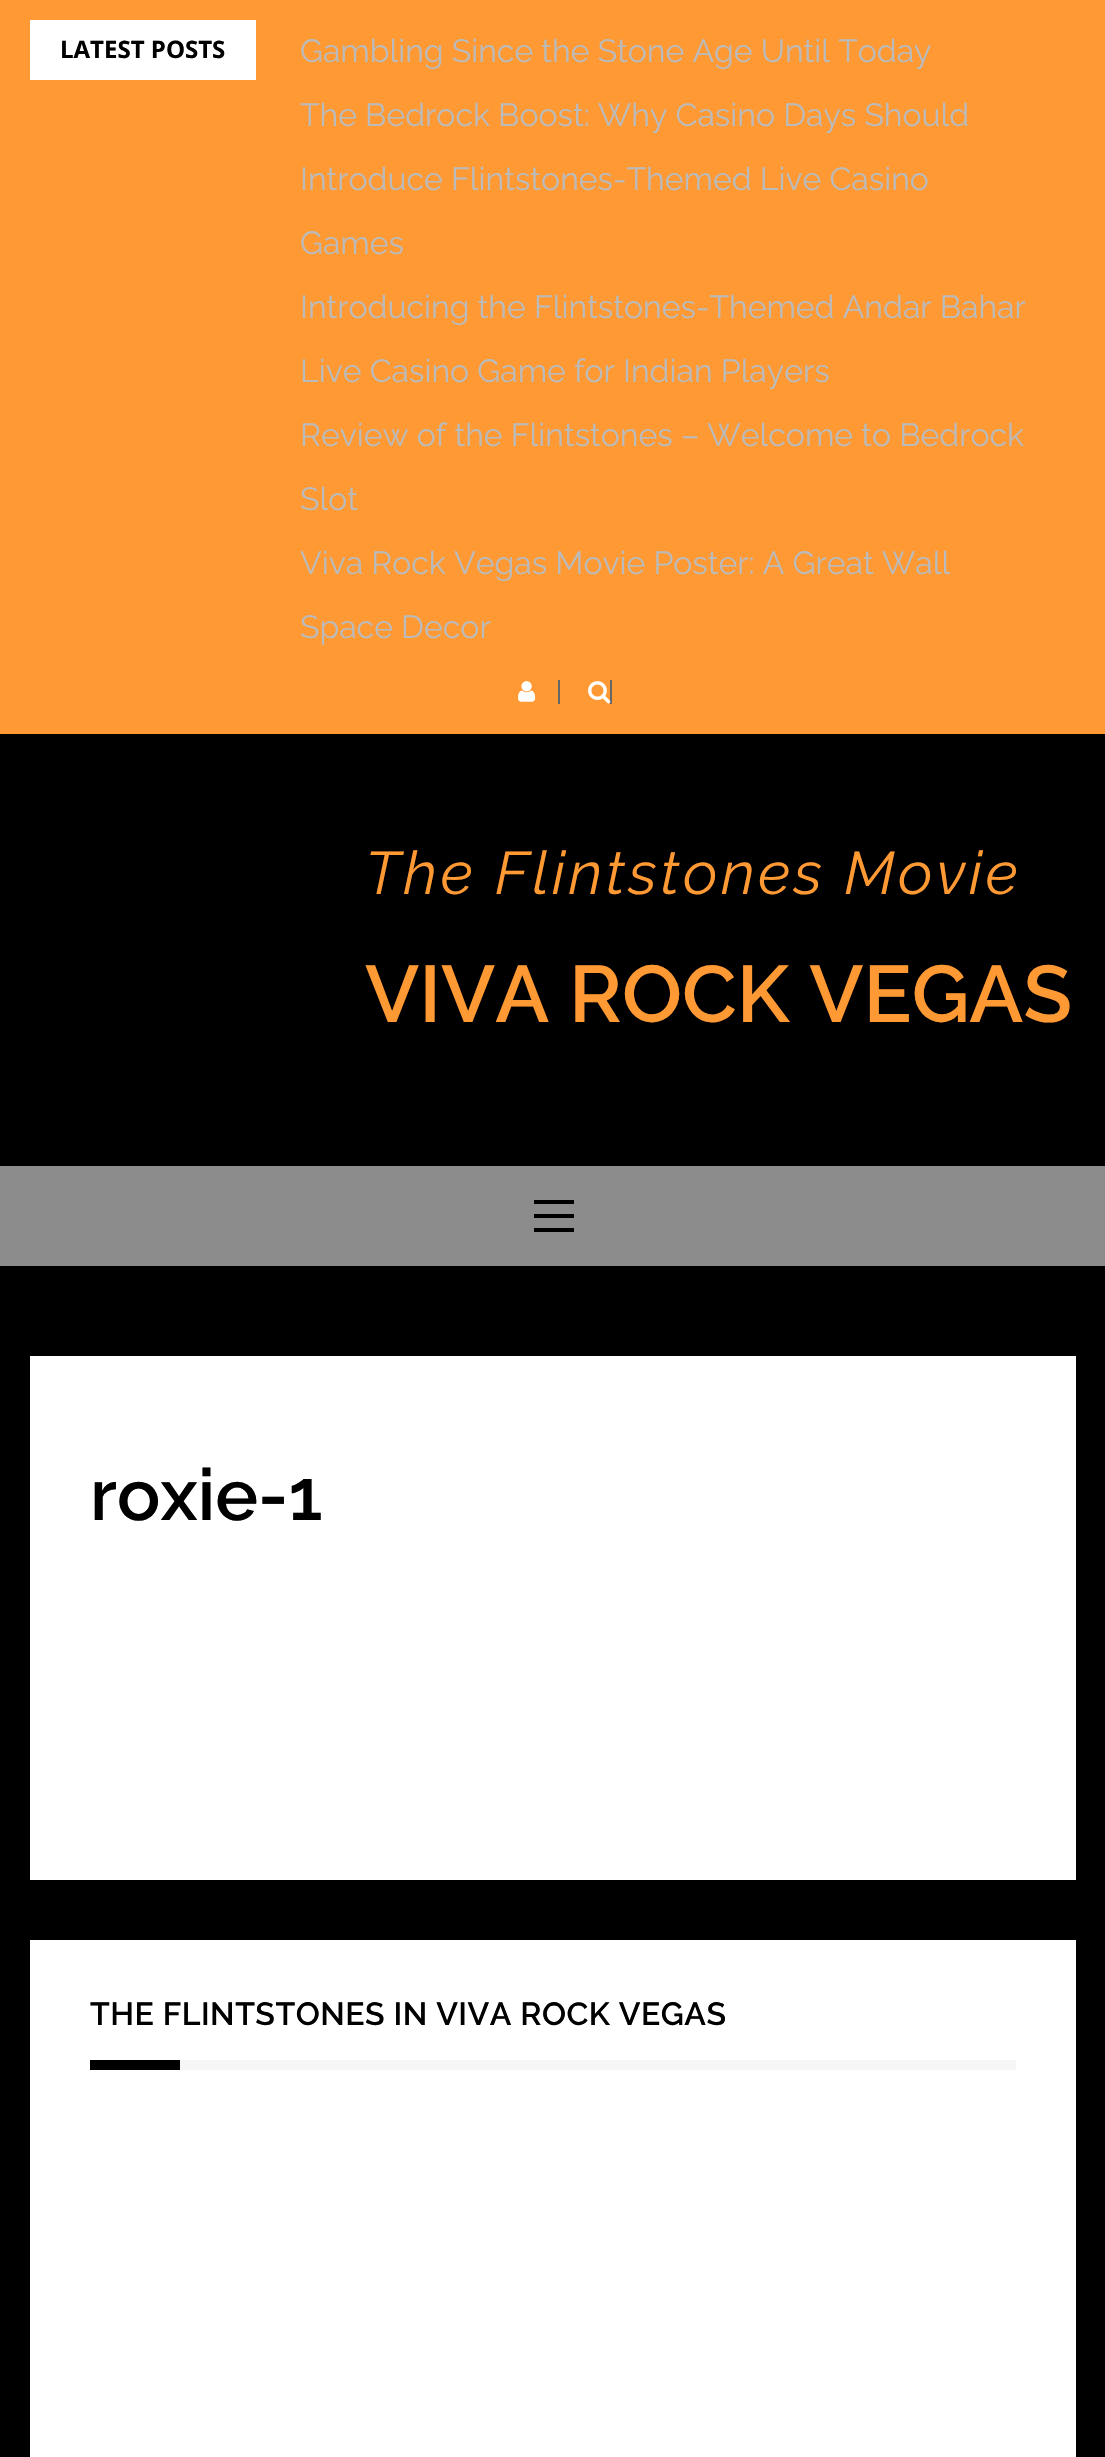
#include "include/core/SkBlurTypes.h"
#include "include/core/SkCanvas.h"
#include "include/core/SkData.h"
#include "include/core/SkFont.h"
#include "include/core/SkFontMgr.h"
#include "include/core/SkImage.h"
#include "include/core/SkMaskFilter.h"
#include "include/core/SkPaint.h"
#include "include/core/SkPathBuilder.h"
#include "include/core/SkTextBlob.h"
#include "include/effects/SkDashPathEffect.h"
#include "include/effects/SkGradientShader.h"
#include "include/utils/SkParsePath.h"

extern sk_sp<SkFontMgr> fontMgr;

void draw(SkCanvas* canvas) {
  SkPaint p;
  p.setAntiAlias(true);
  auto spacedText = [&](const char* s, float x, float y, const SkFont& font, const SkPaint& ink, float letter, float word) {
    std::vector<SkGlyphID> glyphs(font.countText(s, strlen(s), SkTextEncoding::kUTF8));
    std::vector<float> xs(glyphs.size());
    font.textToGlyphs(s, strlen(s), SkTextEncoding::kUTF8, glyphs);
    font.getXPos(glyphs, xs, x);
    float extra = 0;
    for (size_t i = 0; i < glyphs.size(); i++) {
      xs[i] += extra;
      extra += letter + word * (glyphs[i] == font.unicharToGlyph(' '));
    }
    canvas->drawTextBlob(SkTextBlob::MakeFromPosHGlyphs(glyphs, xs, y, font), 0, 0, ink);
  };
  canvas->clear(SK_ColorBLACK);
  p.setColor(SkColorSetRGB(255, 153, 51));
  canvas->drawRect(SkRect::MakeLTRB(0, 0, 1105, 734), p);
  p.setColor(SK_ColorWHITE);
  canvas->drawRect(SkRect::MakeLTRB(30, 20, 256, 80), p);
  p.setColor(SkColorSetRGB(102, 102, 102));
  canvas->drawRect(SkRect::MakeLTRB(558, 680, 560, 704), p);
  canvas->drawImageRect(SkImages::DeferredFromEncodedData(SkData::MakeFromFileName("images/1.png")), SkRect::MakeLTRB(518, 681, 536, 702), SkSamplingOptions());
  canvas->drawRect(SkRect::MakeLTRB(610, 680, 612, 704), p);
  canvas->drawImageRect(SkImages::DeferredFromEncodedData(SkData::MakeFromFileName("images/2.png")), SkRect::MakeLTRB(588, 681, 611, 704), SkSamplingOptions());
  p.setColor(SkColorSetRGB(140, 140, 140));
  canvas->drawRect(SkRect::MakeLTRB(0, 1166, 1105, 1266), p);
  p.setColor(SK_ColorBLACK);
  canvas->drawRect(SkRect::MakeLTRB(534, 1200, 574, 1204), p);
  canvas->drawRect(SkRect::MakeLTRB(534, 1214, 574, 1218), p);
  canvas->drawRect(SkRect::MakeLTRB(534, 1228, 574, 1232), p);
  p.setColor(SK_ColorWHITE);
  canvas->drawRect(SkRect::MakeLTRB(30, 1356, 1076, 1880), p);
  canvas->drawRect(SkRect::MakeLTRB(30, 1940, 1076, 2457), p);
  p.setColor(SkColorSetRGB(246, 246, 246));
  canvas->drawRect(SkRect::MakeLTRB(180, 2060, 1016, 2070), p);
  p.setColor(SK_ColorBLACK);
  canvas->drawRect(SkRect::MakeLTRB(90, 2060, 180, 2070), p);
  SkFont font1(fontMgr->matchFamilyStyle("Open Sans", SkFontStyle::Bold()), 24);
  font1.setSubpixel(true);
  canvas->drawString("LATEST POSTS", 60, 58, font1, p);
  SkFont font2(fontMgr->matchFamilyStyle("Raleway", SkFontStyle::Normal()), 32);
  font2.setSubpixel(true);
  p.setColor(SkColorSetRGB(187, 187, 187));
  canvas->drawString("Gambling Since the Stone Age Until Today", 300, 62, font2, p);
  canvas->drawString("The Bedrock Boost: Why Casino Days Should", 300, 126, font2, p);
  canvas->drawString("Introduce Flintstones-Themed Live Casino", 300, 190, font2, p);
  canvas->drawString("Games", 300, 254, font2, p);
  canvas->drawString("Introducing the Flintstones-Themed Andar Bahar", 300, 318, font2, p);
  canvas->drawString("Live Casino Game for Indian Players", 300, 382, font2, p);
  canvas->drawString("Review of the Flintstones – Welcome to Bedrock", 300, 446, font2, p);
  canvas->drawString("Slot", 300, 510, font2, p);
  canvas->drawString("Viva Rock Vegas Movie Poster: A Great Wall", 300, 574, font2, p);
  canvas->drawString("Space Decor", 300, 638, font2, p);
  SkFont font3(fontMgr->matchFamilyStyle("Raleway", SkFontStyle::Italic()), 60);
  font3.setSubpixel(true);
  p.setColor(SkColorSetRGB(255, 153, 51));
  spacedText("The Flintstones Movie", 365, 894, font3, p, 3.6f, 0);
  SkFont font4(fontMgr->matchFamilyStyle("Raleway", SkFontStyle(600, SkFontStyle::kNormal_Width, SkFontStyle::kUpright_Slant)), 80);
  font4.setSubpixel(true);
  canvas->drawString("VIVA ROCK VEGAS", 365, 1022, font4, p);
  SkFont font5(fontMgr->matchFamilyStyle("Raleway", SkFontStyle(600, SkFontStyle::kNormal_Width, SkFontStyle::kUpright_Slant)), 72);
  font5.setSubpixel(true);
  p.setColor(SK_ColorBLACK);
  canvas->drawString("roxie-1", 90, 1520, font5, p);
  SkFont font6(fontMgr->matchFamilyStyle("Raleway", SkFontStyle(600, SkFontStyle::kNormal_Width, SkFontStyle::kUpright_Slant)), 32);
  font6.setSubpixel(true);
  spacedText("THE FLINTSTONES IN VIVA ROCK VEGAS", 90, 2025, font6, p, 0.5f, 0);
}
